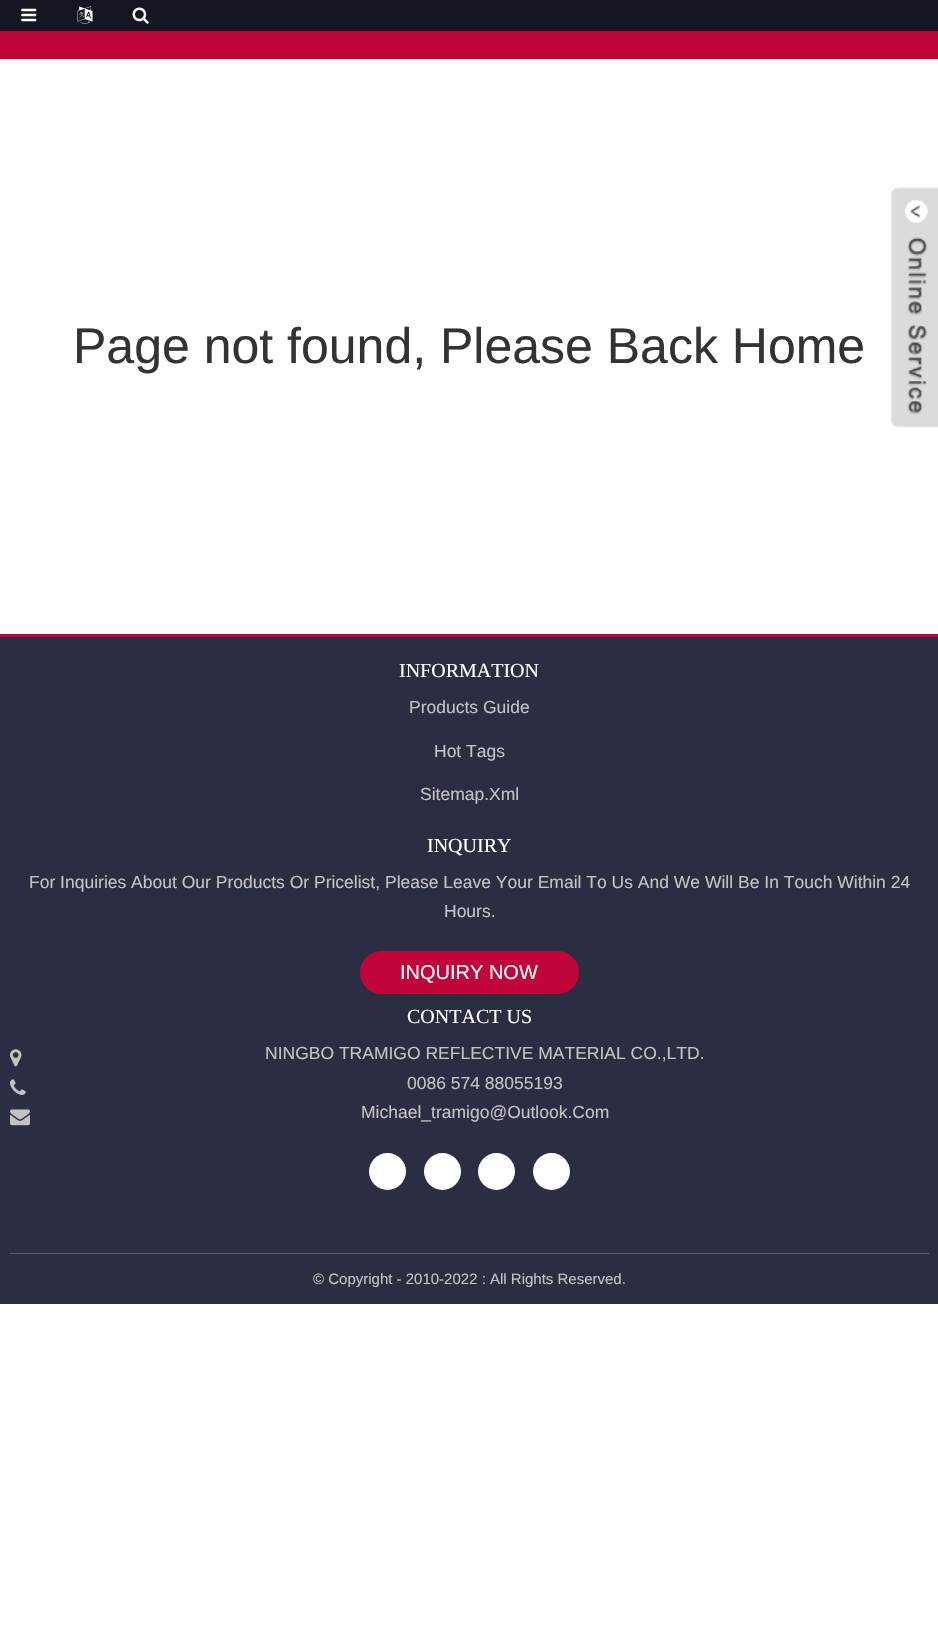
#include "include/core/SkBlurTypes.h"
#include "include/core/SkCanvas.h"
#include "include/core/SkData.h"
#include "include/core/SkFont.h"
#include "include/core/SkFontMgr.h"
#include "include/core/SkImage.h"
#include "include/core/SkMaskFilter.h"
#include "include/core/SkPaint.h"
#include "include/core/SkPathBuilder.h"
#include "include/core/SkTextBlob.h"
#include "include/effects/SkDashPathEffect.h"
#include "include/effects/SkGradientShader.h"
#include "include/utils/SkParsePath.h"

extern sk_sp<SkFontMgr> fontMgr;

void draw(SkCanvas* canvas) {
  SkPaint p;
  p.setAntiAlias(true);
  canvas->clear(SK_ColorWHITE);
  p.setColor(SkColorSetRGB(22, 22, 34));
  canvas->drawRect(SkRect::MakeLTRB(0, 0, 938, 31), p);
  canvas->drawImageRect(SkImages::DeferredFromEncodedData(SkData::MakeFromFileName("images/1.png")), SkRect::MakeLTRB(21, 8, 37, 22), SkSamplingOptions());
  canvas->drawImageRect(SkImages::DeferredFromEncodedData(SkData::MakeFromFileName("images/2.png")), SkRect::MakeLTRB(77, 6, 93, 24), SkSamplingOptions());
  canvas->drawImageRect(SkImages::DeferredFromEncodedData(SkData::MakeFromFileName("images/3.png")), SkRect::MakeLTRB(132, 7, 149, 24), SkSamplingOptions());
  p.setColor(SkColorSetRGB(193, 5, 56));
  canvas->drawRect(SkRect::MakeLTRB(0, 31, 938, 59), p);
  canvas->drawImageRect(SkImages::DeferredFromEncodedData(SkData::MakeFromFileName("images/4.png")), SkRect::MakeLTRB(891, 187, 938, 428), SkSamplingOptions());
  p.setColor(SkColorSetRGB(43, 45, 66));
  canvas->drawRect(SkRect::MakeLTRB(0, 637, 938, 1304), p);
  p.setColor(SkColorSetRGB(193, 5, 56));
  canvas->drawRect(SkRect::MakeLTRB(0, 634, 938, 637), p);
  canvas->drawRoundRect(SkRect::MakeLTRB(361.5f, 952.5f, 577.5f, 992.5f), 20, 20, p);
  p.setStyle(SkPaint::kStroke_Style);
  p.setStrokeWidth(3);
  canvas->drawRoundRect(SkRect::MakeLTRB(361.5f, 952.5f, 577.5f, 992.5f), 20, 20, p);
  canvas->drawImageRect(SkImages::DeferredFromEncodedData(SkData::MakeFromFileName("images/5.png")), SkRect::MakeLTRB(10, 1049, 22, 1067), SkSamplingOptions());
  canvas->drawImageRect(SkImages::DeferredFromEncodedData(SkData::MakeFromFileName("images/6.png")), SkRect::MakeLTRB(10, 1079, 26, 1095), SkSamplingOptions());
  canvas->drawImageRect(SkImages::DeferredFromEncodedData(SkData::MakeFromFileName("images/7.png")), SkRect::MakeLTRB(10, 1109, 30, 1126), SkSamplingOptions());
  p.setStyle(SkPaint::kFill_Style);
  p.setColor(SK_ColorWHITE);
  canvas->drawCircle(387.5f, 1171.5f, 18.5f, p);
  canvas->drawCircle(442.5f, 1171.5f, 18.5f, p);
  canvas->drawCircle(496.5f, 1171.5f, 18.5f, p);
  canvas->drawCircle(551.5f, 1171.5f, 18.5f, p);
  p.setColor(SkColorSetRGB(93, 93, 93));
  canvas->drawRect(SkRect::MakeLTRB(10, 1253, 929, 1254), p);
  SkFont font1(fontMgr->matchFamilyStyle("Liberation Sans", SkFontStyle::Normal()), 50);
  font1.setSubpixel(true);
  p.setColor(SkColorSetRGB(51, 51, 51));
  canvas->drawString("Page not found, Please Back Home", 73, 363, font1, p);
  SkFont font2(fontMgr->matchFamilyStyle("Liberation Serif", SkFontStyle::Normal()), 20);
  font2.setSubpixel(true);
  p.setColor(SK_ColorWHITE);
  canvas->drawString("INFORMATION", 399, 677, font2, p);
  SkFont font3(fontMgr->matchFamilyStyle("Liberation Sans", SkFontStyle::Normal()), 17.5f);
  font3.setSubpixel(true);
  p.setColor(SkColorSetRGB(195, 195, 195));
  canvas->drawString("Products Guide", 409, 713, font3, p);
  canvas->drawString("Hot Tags", 434, 757, font3, p);
  canvas->drawString("Sitemap.Xml", 420, 800, font3, p);
  p.setColor(SK_ColorWHITE);
  canvas->drawString("INQUIRY", 427, 852, font2, p);
  p.setColor(SkColorSetRGB(195, 195, 195));
  canvas->drawString("For Inquiries About Our Products Or Pricelist, Please Leave Your Email To Us And We Will Be In Touch Within 24", 29, 888, font3, p);
  canvas->drawString("Hours.", 444, 917, font3, p);
  SkFont font4(fontMgr->matchFamilyStyle("Liberation Sans", SkFontStyle::Normal()), 20);
  font4.setSubpixel(true);
  p.setColor(SK_ColorWHITE);
  canvas->drawString("INQUIRY NOW", 400, 979, font4, p);
  canvas->drawString("CONTACT US", 407, 1023, font2, p);
  p.setColor(SkColorSetRGB(195, 195, 195));
  canvas->drawString("NINGBO TRAMIGO REFLECTIVE MATERIAL CO.,LTD.", 265, 1059, font3, p);
  canvas->drawString("0086 574 88055193", 407, 1089, font3, p);
  canvas->drawString("Michael_tramigo@Outlook.Com", 361, 1118, font3, p);
  SkFont font5(fontMgr->matchFamilyStyle("Liberation Sans", SkFontStyle::Normal()), 15);
  font5.setSubpixel(true);
  canvas->drawString("© Copyright - 2010-2022 : All Rights Reserved.", 313, 1284, font5, p);
}
